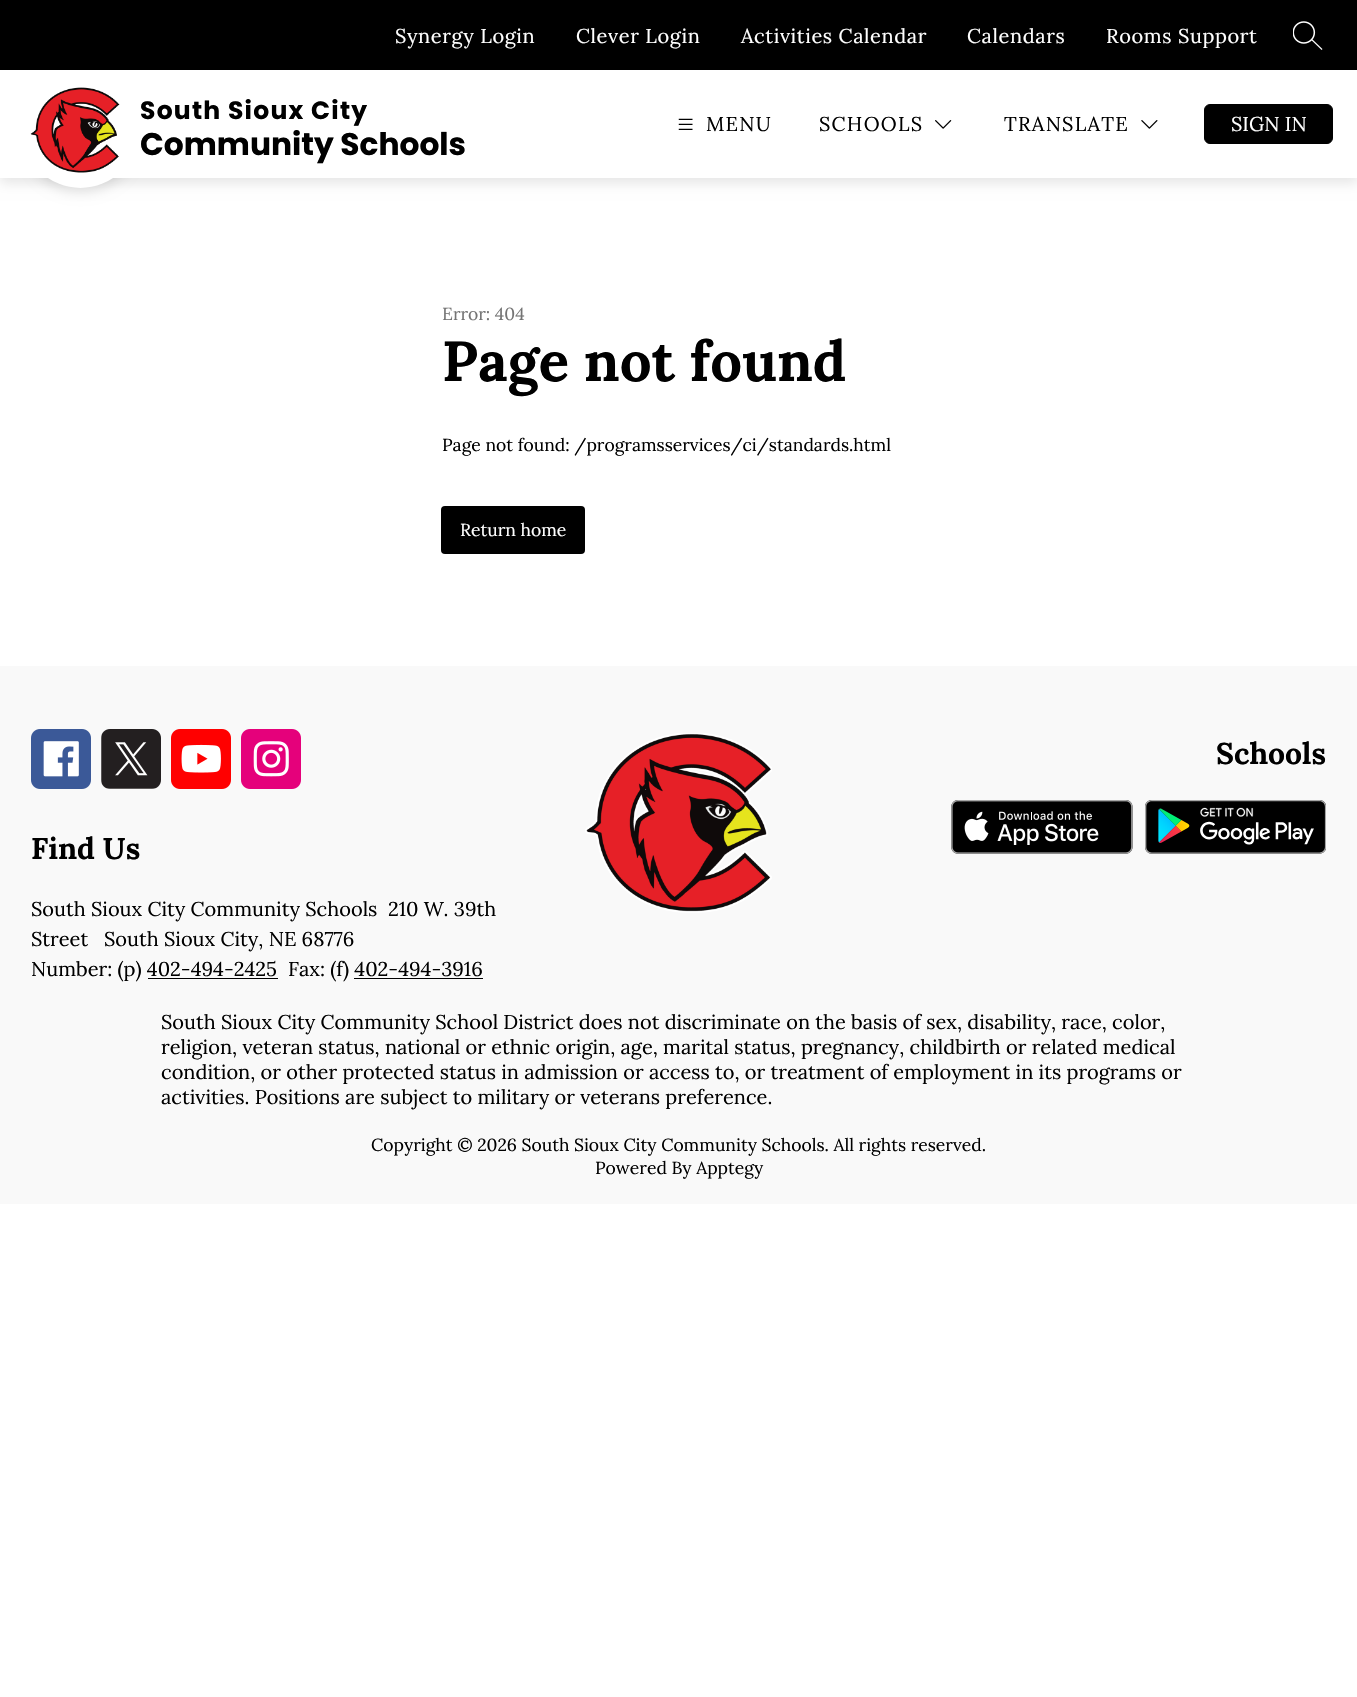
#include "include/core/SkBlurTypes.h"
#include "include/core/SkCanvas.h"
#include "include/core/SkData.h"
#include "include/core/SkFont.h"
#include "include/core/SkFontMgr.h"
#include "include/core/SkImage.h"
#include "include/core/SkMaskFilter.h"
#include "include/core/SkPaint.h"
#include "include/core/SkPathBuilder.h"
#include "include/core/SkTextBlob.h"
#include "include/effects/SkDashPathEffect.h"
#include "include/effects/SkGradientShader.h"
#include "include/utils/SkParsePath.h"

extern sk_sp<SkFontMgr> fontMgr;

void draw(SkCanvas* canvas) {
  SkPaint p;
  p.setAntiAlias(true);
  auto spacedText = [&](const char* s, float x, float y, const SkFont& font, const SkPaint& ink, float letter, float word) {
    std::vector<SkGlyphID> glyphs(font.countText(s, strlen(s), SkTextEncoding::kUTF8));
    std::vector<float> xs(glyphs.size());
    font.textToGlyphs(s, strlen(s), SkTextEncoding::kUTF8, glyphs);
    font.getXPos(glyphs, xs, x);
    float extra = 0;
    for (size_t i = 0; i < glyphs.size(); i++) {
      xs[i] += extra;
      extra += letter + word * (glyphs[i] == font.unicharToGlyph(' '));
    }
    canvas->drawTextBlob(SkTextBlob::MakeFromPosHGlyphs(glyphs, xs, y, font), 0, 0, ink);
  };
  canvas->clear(SK_ColorWHITE);
  p.setColor(SkColorSetARGB(26, 0, 0, 0));
  p.setMaskFilter(SkMaskFilter::MakeBlur(kNormal_SkBlurStyle, 6));
  canvas->drawRect(SkRect::MakeLTRB(0, 5, 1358, 183), p);
  p.setMaskFilter(nullptr);
  p.setMaskFilter(SkMaskFilter::MakeBlur(kNormal_SkBlurStyle, 6));
  canvas->drawRoundRect(SkRect::MakeLTRB(23, 78, 138, 193), 57.5f, 57.5f, p);
  p.setMaskFilter(nullptr);
  p.setColor(SK_ColorBLACK);
  canvas->drawRect(SkRect::MakeLTRB(0, 0, 1357, 70), p);
  canvas->drawImageRect(SkImages::DeferredFromEncodedData(SkData::MakeFromFileName("images/1.png")), SkRect::MakeLTRB(1293, 21, 1323, 50), SkSamplingOptions());
  p.setColor(SK_ColorWHITE);
  canvas->drawCircle(80.5f, 130.5f, 57.5f, p);
  canvas->drawRect(SkRect::MakeLTRB(0, 70, 1357, 178), p);
  canvas->drawImageRect(SkImages::DeferredFromEncodedData(SkData::MakeFromFileName("images/2.png")), SkRect::MakeLTRB(30, 87, 120, 173), SkSamplingOptions());
  canvas->drawImageRect(SkImages::DeferredFromEncodedData(SkData::MakeFromFileName("images/3.png")), SkRect::MakeLTRB(678, 118, 693, 130), SkSamplingOptions());
  canvas->drawImageRect(SkImages::DeferredFromEncodedData(SkData::MakeFromFileName("images/4.png")), SkRect::MakeLTRB(935, 120, 952, 129), SkSamplingOptions());
  canvas->drawImageRect(SkImages::DeferredFromEncodedData(SkData::MakeFromFileName("images/5.png")), SkRect::MakeLTRB(1141, 120, 1158, 129), SkSamplingOptions());
  p.setColor(SK_ColorBLACK);
  canvas->drawRoundRect(SkRect::MakeLTRB(1204.5f, 104.5f, 1332.5f, 143.5f), 5.5f, 5.5f, p);
  p.setStyle(SkPaint::kStroke_Style);
  p.setStrokeWidth(1);
  canvas->drawRoundRect(SkRect::MakeLTRB(1204.5f, 104.5f, 1332.5f, 143.5f), 5.5f, 5.5f, p);
  p.setStyle(SkPaint::kFill_Style);
  canvas->drawRoundRect(SkRect::MakeLTRB(441, 506, 585, 554), 4, 4, p);
  p.setColor(SkColorSetRGB(249, 249, 249));
  canvas->drawRect(SkRect::MakeLTRB(0, 666, 1357, 1204), p);
  canvas->drawImageRect(SkImages::DeferredFromEncodedData(SkData::MakeFromFileName("images/6.png")), SkRect::MakeLTRB(585, 733, 772, 913), SkSamplingOptions());
  canvas->drawImageRect(SkImages::DeferredFromEncodedData(SkData::MakeFromFileName("images/7.png")), SkRect::MakeLTRB(951, 800, 1133, 854), SkSamplingOptions());
  canvas->drawImageRect(SkImages::DeferredFromEncodedData(SkData::MakeFromFileName("images/8.png")), SkRect::MakeLTRB(1145, 800, 1326, 854), SkSamplingOptions());
  canvas->drawImageRect(SkImages::DeferredFromEncodedData(SkData::MakeFromFileName("images/9.png")), SkRect::MakeLTRB(31, 729, 91, 789), SkSamplingOptions());
  canvas->drawImageRect(SkImages::DeferredFromEncodedData(SkData::MakeFromFileName("images/10.png")), SkRect::MakeLTRB(101, 729, 161, 789), SkSamplingOptions());
  canvas->drawImageRect(SkImages::DeferredFromEncodedData(SkData::MakeFromFileName("images/11.png")), SkRect::MakeLTRB(171, 729, 231, 789), SkSamplingOptions());
  canvas->drawImageRect(SkImages::DeferredFromEncodedData(SkData::MakeFromFileName("images/12.png")), SkRect::MakeLTRB(241, 729, 301, 789), SkSamplingOptions());
  p.setColor(SK_ColorBLACK);
  canvas->drawRect(SkRect::MakeLTRB(148, 978, 278, 979), p);
  canvas->drawRect(SkRect::MakeLTRB(354, 978, 483, 979), p);
  SkFont font1(fontMgr->matchFamilyStyle("Lora", SkFontStyle::Normal()), 20);
  font1.setSubpixel(true);
  p.setColor(SK_ColorWHITE);
  spacedText("Synergy Login", 395, 43, font1, p, 0.6f, 0);
  spacedText("Clever Login", 576, 43, font1, p, 0.6f, 0);
  spacedText("Activities Calendar", 741, 43, font1, p, 0.6f, 0);
  spacedText("Calendars", 967, 43, font1, p, 0.6f, 0);
  spacedText("Rooms Support", 1106, 43, font1, p, 0.6f, 0);
  SkFont font2(fontMgr->matchFamilyStyle("Poppins", SkFontStyle::Bold()), 25);
  font2.setSubpixel(true);
  p.setColor(SK_ColorBLACK);
  spacedText("South Sioux City", 140, 119, font2, p, 1.25f, 0);
  SkFont font3(fontMgr->matchFamilyStyle("Poppins", SkFontStyle::Bold()), 31.25f);
  font3.setSubpixel(true);
  canvas->drawString("Community Schools", 140, 155, font3, p);
  spacedText("MENU", 706, 131, font1, p, 1.25f, 0);
  spacedText("SCHOOLS", 819, 131, font1, p, 1.25f, 0);
  spacedText("TRANSLATE", 1004, 131, font1, p, 1.25f, 0);
  p.setColor(SK_ColorWHITE);
  canvas->drawString("SIGN IN", 1231, 131, font1, p);
  SkFont font4(fontMgr->matchFamilyStyle("Lora", SkFontStyle::Normal()), 17.5f);
  font4.setSubpixel(true);
  p.setColor(SkColorSetRGB(116, 116, 116));
  canvas->drawString("Error: 404", 442, 320, font4, p);
  SkFont font5(fontMgr->matchFamilyStyle("Lora", SkFontStyle::Bold()), 56.25f);
  font5.setSubpixel(true);
  p.setColor(SK_ColorBLACK);
  canvas->drawString("Page not found", 442, 381, font5, p);
  canvas->drawString("Page not found: /programsservices/ci/standards.html", 442, 451, font4, p);
  p.setColor(SK_ColorWHITE);
  canvas->drawString("Return home", 460, 536, font4, p);
  SkFont font6(fontMgr->matchFamilyStyle("Lora", SkFontStyle::Bold()), 30);
  font6.setSubpixel(true);
  p.setColor(SK_ColorBLACK);
  canvas->drawString("Schools", 1216, 764, font6, p);
  canvas->drawString("Find Us", 31, 859, font6, p);
  canvas->drawString("South Sioux City Community Schools", 31, 916, font1, p);
  canvas->drawString("210 W. 39th", 388, 916, font1, p);
  canvas->drawString("Street", 31, 946, font1, p);
  canvas->drawString("South Sioux City, NE 68776", 104, 946, font1, p);
  canvas->drawString("Number: (p) 402-494-2425", 31, 976, font1, p);
  canvas->drawString("Fax: (f) 402-494-3916", 288, 976, font1, p);
  canvas->drawString("South Sioux City Community School District does not discriminate on the basis of sex, disability, race, color,", 161, 1029, font1, p);
  canvas->drawString("religion, veteran status, national or ethnic origin, age, marital status, pregnancy, childbirth or related medical", 161, 1054, font1, p);
  canvas->drawString("condition, or other protected status in admission or access to, or treatment of employment in its programs or", 161, 1079, font1, p);
  canvas->drawString("activities. Positions are subject to military or veterans preference.", 161, 1104, font1, p);
  canvas->drawString("Copyright © 2026 South Sioux City Community Schools. All rights reserved.", 371, 1151, font4, p);
  canvas->drawString("Powered By Apptegy", 595, 1174, font4, p);
}
